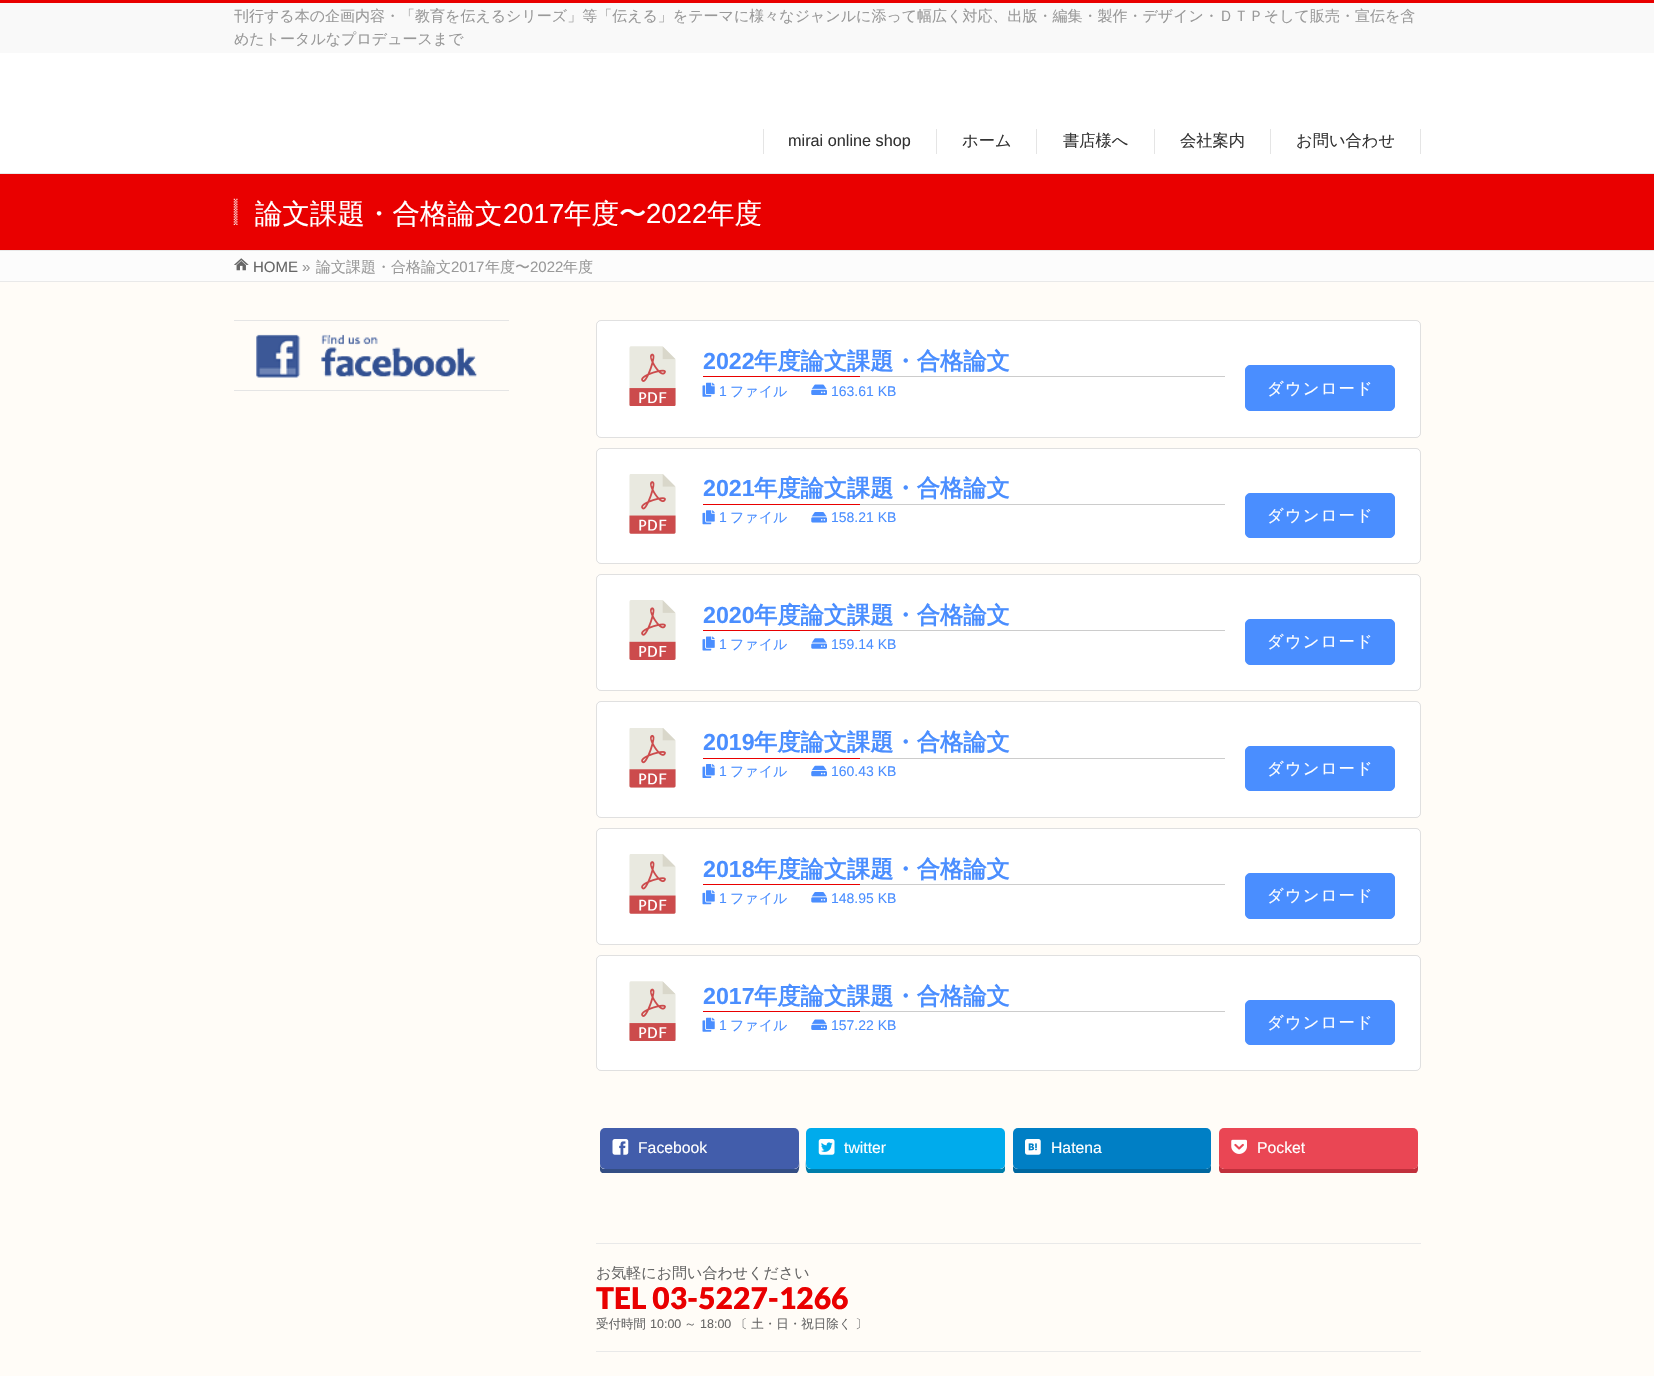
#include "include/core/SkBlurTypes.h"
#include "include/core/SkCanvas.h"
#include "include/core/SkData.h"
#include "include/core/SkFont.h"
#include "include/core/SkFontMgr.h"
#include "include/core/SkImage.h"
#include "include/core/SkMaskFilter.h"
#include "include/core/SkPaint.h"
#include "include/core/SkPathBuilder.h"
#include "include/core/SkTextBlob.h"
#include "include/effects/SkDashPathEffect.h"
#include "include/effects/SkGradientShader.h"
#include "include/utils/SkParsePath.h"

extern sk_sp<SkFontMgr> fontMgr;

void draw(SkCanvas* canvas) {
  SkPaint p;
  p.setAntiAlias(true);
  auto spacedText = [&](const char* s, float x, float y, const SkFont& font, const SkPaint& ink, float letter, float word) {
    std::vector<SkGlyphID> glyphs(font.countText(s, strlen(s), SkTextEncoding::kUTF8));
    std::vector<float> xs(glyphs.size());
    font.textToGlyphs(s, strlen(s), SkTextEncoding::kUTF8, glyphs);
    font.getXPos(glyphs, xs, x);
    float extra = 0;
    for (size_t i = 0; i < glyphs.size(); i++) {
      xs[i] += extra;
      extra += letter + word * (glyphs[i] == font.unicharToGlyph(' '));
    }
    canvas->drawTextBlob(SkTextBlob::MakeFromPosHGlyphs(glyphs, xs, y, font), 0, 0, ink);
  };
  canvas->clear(SkColorSetRGB(255, 252, 247));
  p.setColor(SkColorSetRGB(249, 249, 249));
  canvas->drawRect(SkRect::MakeLTRB(0, 3, 1654, 53), p);
  p.setColor(SkColorSetRGB(233, 0, 0));
  canvas->drawRect(SkRect::MakeLTRB(0, 0, 1654, 3), p);
  p.setColor(SK_ColorWHITE);
  canvas->drawRect(SkRect::MakeLTRB(0, 53, 1654, 173), p);
  p.setColor(SkColorSetRGB(229, 229, 229));
  canvas->drawRect(SkRect::MakeLTRB(936, 129, 937, 154), p);
  canvas->drawRect(SkRect::MakeLTRB(763, 129, 764, 154), p);
  canvas->drawRect(SkRect::MakeLTRB(1036, 129, 1037, 154), p);
  canvas->drawRect(SkRect::MakeLTRB(1154, 129, 1155, 154), p);
  canvas->drawRect(SkRect::MakeLTRB(1270, 129, 1271, 154), p);
  canvas->drawRect(SkRect::MakeLTRB(1420, 129, 1421, 154), p);
  p.setColor(SkColorSetRGB(233, 0, 0));
  canvas->drawRect(SkRect::MakeLTRB(0, 174, 1654, 250), p);
  p.setColor(SkColorSetRGB(233, 233, 233));
  canvas->drawRect(SkRect::MakeLTRB(0, 173, 1654, 174), p);
  canvas->drawRect(SkRect::MakeLTRB(0, 250, 1654, 251), p);
  canvas->drawImageRect(SkImages::DeferredFromEncodedData(SkData::MakeFromFileName("images/1.png")), SkRect::MakeLTRB(233, 198, 238, 225), SkSamplingOptions());
  p.setColor(SkColorSetRGB(252, 252, 252));
  canvas->drawRect(SkRect::MakeLTRB(0, 251, 1654, 281), p);
  canvas->drawImageRect(SkImages::DeferredFromEncodedData(SkData::MakeFromFileName("images/2.png")), SkRect::MakeLTRB(234, 258, 249, 271), SkSamplingOptions());
  p.setColor(SkColorSetRGB(233, 233, 233));
  canvas->drawRect(SkRect::MakeLTRB(0, 281, 1654, 282), p);
  p.setColor(SkColorSetRGB(229, 229, 229));
  canvas->drawRect(SkRect::MakeLTRB(234, 320, 509, 321), p);
  canvas->drawRect(SkRect::MakeLTRB(234, 390, 509, 391), p);
  canvas->drawImageRect(SkImages::DeferredFromEncodedData(SkData::MakeFromFileName("images/3.png")), SkRect::MakeLTRB(256, 334, 477, 378), SkSamplingOptions());
  p.setColor(SK_ColorWHITE);
  canvas->drawRoundRect(SkRect::MakeLTRB(596, 320, 1421, 438), 5, 5, p);
  p.setStyle(SkPaint::kStroke_Style);
  p.setStrokeWidth(1);
  p.setColor(SkColorSetARGB(31, 0, 0, 0));
  canvas->drawRoundRect(SkRect::MakeLTRB(596.5f, 320.5f, 1420.5f, 437.5f), 4.5f, 4.5f, p);
  canvas->drawImageRect(SkImages::DeferredFromEncodedData(SkData::MakeFromFileName("images/4.png")), SkRect::MakeLTRB(629, 346, 676, 406), SkSamplingOptions());
  p.setStyle(SkPaint::kFill_Style);
  p.setColor(SkColorSetRGB(204, 204, 204));
  canvas->drawRect(SkRect::MakeLTRB(860, 376, 1225, 377), p);
  p.setColor(SkColorSetRGB(233, 0, 0));
  canvas->drawRect(SkRect::MakeLTRB(703, 376, 860, 377), p);
  canvas->drawImageRect(SkImages::DeferredFromEncodedData(SkData::MakeFromFileName("images/5.png")), SkRect::MakeLTRB(702, 382, 715, 397), SkSamplingOptions());
  canvas->drawImageRect(SkImages::DeferredFromEncodedData(SkData::MakeFromFileName("images/6.png")), SkRect::MakeLTRB(811, 384, 827, 395), SkSamplingOptions());
  p.setColor(SkColorSetRGB(74, 142, 255));
  canvas->drawRoundRect(SkRect::MakeLTRB(1245.5f, 365.5f, 1394.5f, 410.5f), 4.5f, 4.5f, p);
  p.setStyle(SkPaint::kStroke_Style);
  canvas->drawRoundRect(SkRect::MakeLTRB(1245.5f, 365.5f, 1394.5f, 410.5f), 4.5f, 4.5f, p);
  p.setStyle(SkPaint::kFill_Style);
  p.setColor(SK_ColorWHITE);
  canvas->drawRoundRect(SkRect::MakeLTRB(596, 448, 1421, 564), 5, 5, p);
  p.setStyle(SkPaint::kStroke_Style);
  p.setColor(SkColorSetARGB(31, 0, 0, 0));
  canvas->drawRoundRect(SkRect::MakeLTRB(596.5f, 448.5f, 1420.5f, 563.5f), 4.5f, 4.5f, p);
  canvas->drawImageRect(SkImages::DeferredFromEncodedData(SkData::MakeFromFileName("images/7.png")), SkRect::MakeLTRB(629, 474, 676, 534), SkSamplingOptions());
  p.setStyle(SkPaint::kFill_Style);
  p.setColor(SkColorSetRGB(204, 204, 204));
  canvas->drawRect(SkRect::MakeLTRB(860, 504, 1225, 505), p);
  p.setColor(SkColorSetRGB(233, 0, 0));
  canvas->drawRect(SkRect::MakeLTRB(703, 504, 860, 505), p);
  canvas->drawImageRect(SkImages::DeferredFromEncodedData(SkData::MakeFromFileName("images/8.png")), SkRect::MakeLTRB(702, 510, 715, 525), SkSamplingOptions());
  canvas->drawImageRect(SkImages::DeferredFromEncodedData(SkData::MakeFromFileName("images/9.png")), SkRect::MakeLTRB(811, 512, 827, 523), SkSamplingOptions());
  p.setColor(SkColorSetRGB(74, 142, 255));
  canvas->drawRoundRect(SkRect::MakeLTRB(1245.5f, 493.5f, 1394.5f, 537.5f), 4.5f, 4.5f, p);
  p.setStyle(SkPaint::kStroke_Style);
  canvas->drawRoundRect(SkRect::MakeLTRB(1245.5f, 493.5f, 1394.5f, 537.5f), 4.5f, 4.5f, p);
  p.setStyle(SkPaint::kFill_Style);
  p.setColor(SK_ColorWHITE);
  canvas->drawRoundRect(SkRect::MakeLTRB(596, 574, 1421, 691), 5, 5, p);
  p.setStyle(SkPaint::kStroke_Style);
  p.setColor(SkColorSetARGB(31, 0, 0, 0));
  canvas->drawRoundRect(SkRect::MakeLTRB(596.5f, 574.5f, 1420.5f, 690.5f), 4.5f, 4.5f, p);
  canvas->drawImageRect(SkImages::DeferredFromEncodedData(SkData::MakeFromFileName("images/10.png")), SkRect::MakeLTRB(629, 600, 676, 660), SkSamplingOptions());
  p.setStyle(SkPaint::kFill_Style);
  p.setColor(SkColorSetRGB(204, 204, 204));
  canvas->drawRect(SkRect::MakeLTRB(860, 630, 1225, 631), p);
  p.setColor(SkColorSetRGB(233, 0, 0));
  canvas->drawRect(SkRect::MakeLTRB(703, 630, 860, 631), p);
  canvas->drawImageRect(SkImages::DeferredFromEncodedData(SkData::MakeFromFileName("images/11.png")), SkRect::MakeLTRB(702, 636, 715, 651), SkSamplingOptions());
  canvas->drawImageRect(SkImages::DeferredFromEncodedData(SkData::MakeFromFileName("images/12.png")), SkRect::MakeLTRB(811, 638, 827, 649), SkSamplingOptions());
  p.setColor(SkColorSetRGB(74, 142, 255));
  canvas->drawRoundRect(SkRect::MakeLTRB(1245.5f, 619.5f, 1394.5f, 664.5f), 4.5f, 4.5f, p);
  p.setStyle(SkPaint::kStroke_Style);
  canvas->drawRoundRect(SkRect::MakeLTRB(1245.5f, 619.5f, 1394.5f, 664.5f), 4.5f, 4.5f, p);
  p.setStyle(SkPaint::kFill_Style);
  p.setColor(SK_ColorWHITE);
  canvas->drawRoundRect(SkRect::MakeLTRB(596, 701, 1421, 818), 5, 5, p);
  p.setStyle(SkPaint::kStroke_Style);
  p.setColor(SkColorSetARGB(31, 0, 0, 0));
  canvas->drawRoundRect(SkRect::MakeLTRB(596.5f, 701.5f, 1420.5f, 817.5f), 4.5f, 4.5f, p);
  canvas->drawImageRect(SkImages::DeferredFromEncodedData(SkData::MakeFromFileName("images/13.png")), SkRect::MakeLTRB(629, 728, 676, 788), SkSamplingOptions());
  p.setStyle(SkPaint::kFill_Style);
  p.setColor(SkColorSetRGB(204, 204, 204));
  canvas->drawRect(SkRect::MakeLTRB(860, 758, 1225, 759), p);
  p.setColor(SkColorSetRGB(233, 0, 0));
  canvas->drawRect(SkRect::MakeLTRB(703, 758, 860, 759), p);
  canvas->drawImageRect(SkImages::DeferredFromEncodedData(SkData::MakeFromFileName("images/14.png")), SkRect::MakeLTRB(702, 764, 715, 778), SkSamplingOptions());
  canvas->drawImageRect(SkImages::DeferredFromEncodedData(SkData::MakeFromFileName("images/15.png")), SkRect::MakeLTRB(811, 765, 827, 777), SkSamplingOptions());
  p.setColor(SkColorSetRGB(74, 142, 255));
  canvas->drawRoundRect(SkRect::MakeLTRB(1245.5f, 746.5f, 1394.5f, 790.5f), 4.5f, 4.5f, p);
  p.setStyle(SkPaint::kStroke_Style);
  canvas->drawRoundRect(SkRect::MakeLTRB(1245.5f, 746.5f, 1394.5f, 790.5f), 4.5f, 4.5f, p);
  p.setStyle(SkPaint::kFill_Style);
  p.setColor(SK_ColorWHITE);
  canvas->drawRoundRect(SkRect::MakeLTRB(596, 828, 1421, 945), 5, 5, p);
  p.setStyle(SkPaint::kStroke_Style);
  p.setColor(SkColorSetARGB(31, 0, 0, 0));
  canvas->drawRoundRect(SkRect::MakeLTRB(596.5f, 828.5f, 1420.5f, 944.5f), 4.5f, 4.5f, p);
  canvas->drawImageRect(SkImages::DeferredFromEncodedData(SkData::MakeFromFileName("images/7.png")), SkRect::MakeLTRB(629, 854, 676, 914), SkSamplingOptions());
  p.setStyle(SkPaint::kFill_Style);
  p.setColor(SkColorSetRGB(204, 204, 204));
  canvas->drawRect(SkRect::MakeLTRB(860, 884, 1225, 885), p);
  p.setColor(SkColorSetRGB(233, 0, 0));
  canvas->drawRect(SkRect::MakeLTRB(703, 884, 860, 885), p);
  canvas->drawImageRect(SkImages::DeferredFromEncodedData(SkData::MakeFromFileName("images/8.png")), SkRect::MakeLTRB(702, 890, 715, 905), SkSamplingOptions());
  canvas->drawImageRect(SkImages::DeferredFromEncodedData(SkData::MakeFromFileName("images/9.png")), SkRect::MakeLTRB(811, 892, 827, 903), SkSamplingOptions());
  p.setColor(SkColorSetRGB(74, 142, 255));
  canvas->drawRoundRect(SkRect::MakeLTRB(1245.5f, 873.5f, 1394.5f, 918.5f), 4.5f, 4.5f, p);
  p.setStyle(SkPaint::kStroke_Style);
  canvas->drawRoundRect(SkRect::MakeLTRB(1245.5f, 873.5f, 1394.5f, 918.5f), 4.5f, 4.5f, p);
  p.setStyle(SkPaint::kFill_Style);
  p.setColor(SK_ColorWHITE);
  canvas->drawRoundRect(SkRect::MakeLTRB(596, 955, 1421, 1071), 5, 5, p);
  p.setStyle(SkPaint::kStroke_Style);
  p.setColor(SkColorSetARGB(31, 0, 0, 0));
  canvas->drawRoundRect(SkRect::MakeLTRB(596.5f, 955.5f, 1420.5f, 1070.5f), 4.5f, 4.5f, p);
  canvas->drawImageRect(SkImages::DeferredFromEncodedData(SkData::MakeFromFileName("images/4.png")), SkRect::MakeLTRB(629, 981, 676, 1041), SkSamplingOptions());
  p.setStyle(SkPaint::kFill_Style);
  p.setColor(SkColorSetRGB(204, 204, 204));
  canvas->drawRect(SkRect::MakeLTRB(860, 1011, 1225, 1012), p);
  p.setColor(SkColorSetRGB(233, 0, 0));
  canvas->drawRect(SkRect::MakeLTRB(703, 1011, 860, 1012), p);
  canvas->drawImageRect(SkImages::DeferredFromEncodedData(SkData::MakeFromFileName("images/5.png")), SkRect::MakeLTRB(702, 1017, 715, 1032), SkSamplingOptions());
  canvas->drawImageRect(SkImages::DeferredFromEncodedData(SkData::MakeFromFileName("images/6.png")), SkRect::MakeLTRB(811, 1019, 827, 1030), SkSamplingOptions());
  p.setColor(SkColorSetRGB(74, 142, 255));
  canvas->drawRoundRect(SkRect::MakeLTRB(1245.5f, 1000.5f, 1394.5f, 1044.5f), 4.5f, 4.5f, p);
  p.setStyle(SkPaint::kStroke_Style);
  canvas->drawRoundRect(SkRect::MakeLTRB(1245.5f, 1000.5f, 1394.5f, 1044.5f), 4.5f, 4.5f, p);
  canvas->save();
  canvas->clipRect(SkRect::MakeLTRB(596, 1124, 1421, 1173));
  p.setStyle(SkPaint::kFill_Style);
  p.setColor(SkColorSetRGB(52, 78, 132));
  canvas->drawPath(SkPathBuilder().moveTo(600, 1164).lineTo(600, 1170).cubicTo(602, 1180, 635, 1174, 636, 1174).lineTo(794, 1174).cubicTo(801, 1174, 799, 1163, 799, 1159).lineTo(799, 1136).lineTo(799, 1164).cubicTo(799, 1167, 797, 1169, 794, 1169).lineTo(605, 1169).cubicTo(602, 1169, 600, 1167, 600, 1164).close().detach(), p);
  canvas->restore();
  p.setColor(SkColorSetRGB(66, 93, 171));
  canvas->drawRoundRect(SkRect::MakeLTRB(600, 1128, 799, 1169), 5, 5, p);
  canvas->drawImageRect(SkImages::DeferredFromEncodedData(SkData::MakeFromFileName("images/16.png")), SkRect::MakeLTRB(612, 1139, 629, 1155), SkSamplingOptions());
  canvas->save();
  canvas->clipRect(SkRect::MakeLTRB(596, 1124, 1421, 1173));
  p.setColor(SkColorSetRGB(0, 126, 170));
  canvas->drawPath(SkPathBuilder().moveTo(806, 1136).lineTo(806, 1159).cubicTo(806, 1163, 804, 1174, 811, 1174).lineTo(968, 1174).cubicTo(970, 1174, 1003, 1180, 1005, 1170).lineTo(1005, 1164).cubicTo(1005, 1167, 1003, 1169, 1000, 1169).lineTo(811, 1169).cubicTo(808, 1169, 806, 1167, 806, 1164).close().detach(), p);
  canvas->restore();
  p.setColor(SkColorSetRGB(0, 171, 236));
  canvas->drawRoundRect(SkRect::MakeLTRB(806, 1128, 1005, 1169), 5, 5, p);
  canvas->drawImageRect(SkImages::DeferredFromEncodedData(SkData::MakeFromFileName("images/17.png")), SkRect::MakeLTRB(818, 1139, 835, 1155), SkSamplingOptions());
  canvas->save();
  canvas->clipRect(SkRect::MakeLTRB(596, 1124, 1421, 1173));
  p.setColor(SkColorSetRGB(0, 103, 159));
  canvas->drawPath(SkPathBuilder().moveTo(1013, 1166).lineTo(1013, 1169).cubicTo(1013, 1172, 1015, 1174, 1018, 1174).lineTo(1206, 1174).cubicTo(1209, 1174, 1211, 1172, 1211, 1169).lineTo(1211, 1165).cubicTo(1210, 1167, 1208, 1169, 1206, 1169).lineTo(1018, 1169).cubicTo(1016, 1169, 1014, 1168, 1013, 1166).close().detach(), p);
  canvas->restore();
  p.setColor(SkColorSetRGB(0, 127, 197));
  canvas->drawRoundRect(SkRect::MakeLTRB(1013, 1128, 1211, 1169), 5, 5, p);
  canvas->drawImageRect(SkImages::DeferredFromEncodedData(SkData::MakeFromFileName("images/18.png")), SkRect::MakeLTRB(1025, 1139, 1041, 1155), SkSamplingOptions());
  canvas->save();
  canvas->clipRect(SkRect::MakeLTRB(596, 1124, 1421, 1173));
  p.setColor(SkColorSetRGB(193, 48, 60));
  canvas->drawPath(SkPathBuilder().moveTo(1219, 1165).lineTo(1219, 1169).cubicTo(1219, 1172, 1221, 1174, 1224, 1174).lineTo(1413, 1174).cubicTo(1416, 1174, 1418, 1172, 1418, 1169).lineTo(1418, 1138).lineTo(1418, 1136).lineTo(1418, 1164).cubicTo(1418, 1167, 1415, 1169, 1412, 1169).lineTo(1224, 1169).cubicTo(1222, 1169, 1220, 1167, 1219, 1165).close().detach(), p);
  canvas->restore();
  p.setColor(SkColorSetRGB(234, 70, 84));
  canvas->drawRoundRect(SkRect::MakeLTRB(1219, 1128, 1418, 1169), 5, 5, p);
  canvas->drawImageRect(SkImages::DeferredFromEncodedData(SkData::MakeFromFileName("images/19.png")), SkRect::MakeLTRB(1231, 1139, 1247, 1154), SkSamplingOptions());
  p.setColor(SkColorSetRGB(233, 233, 233));
  canvas->drawRect(SkRect::MakeLTRB(596, 1243, 1421, 1244), p);
  canvas->drawRect(SkRect::MakeLTRB(596, 1351, 1421, 1352), p);
  SkFont font1(fontMgr->matchFamilyStyle("WenQuanYi Zen Hei", SkFontStyle(500, SkFontStyle::kNormal_Width, SkFontStyle::kUpright_Slant)), 15);
  font1.setSubpixel(true);
  p.setColor(SkColorSetRGB(153, 153, 153));
  canvas->drawString("刊行する本の企画内容・「教育を伝えるシリーズ」等「伝える」をテーマに様々なジャンルに添って幅広く対応、出版・編集・製作・デザイン・ＤＴＰそして販売・宣伝を含", 234, 21, font1, p);
  canvas->drawString("めたトータルなプロデュースまで", 234, 44, font1, p);
  SkFont font2(fontMgr->matchFamilyStyle("Liberation Sans", SkFontStyle::Normal()), 16.25f);
  font2.setSubpixel(true);
  p.setColor(SkColorSetRGB(51, 51, 51));
  canvas->drawString("mirai online shop", 788, 146, font2, p);
  SkFont font3(fontMgr->matchFamilyStyle("WenQuanYi Zen Hei", SkFontStyle(500, SkFontStyle::kNormal_Width, SkFontStyle::kUpright_Slant)), 16.25f);
  font3.setSubpixel(true);
  canvas->drawString("ホーム", 962, 146, font3, p);
  canvas->drawString("書店様へ", 1063, 146, font3, p);
  canvas->drawString("会社案内", 1180, 146, font3, p);
  canvas->drawString("お問い合わせ", 1296, 146, font3, p);
  SkFont font4(fontMgr->matchFamilyStyle("WenQuanYi Zen Hei", SkFontStyle(500, SkFontStyle::kNormal_Width, SkFontStyle::kUpright_Slant)), 27.5f);
  font4.setSubpixel(true);
  p.setColor(SK_ColorWHITE);
  canvas->drawString("論文課題・合格論文", 255, 223, font4, p);
  SkFont font5(fontMgr->matchFamilyStyle("Liberation Sans", SkFontStyle::Normal()), 27.5f);
  font5.setSubpixel(true);
  canvas->drawString("2017", 503, 223, font5, p);
  canvas->drawString("年度〜", 564, 223, font4, p);
  canvas->drawString("2022", 646, 223, font5, p);
  canvas->drawString("年度", 707, 223, font4, p);
  SkFont font6(fontMgr->matchFamilyStyle("Liberation Sans", SkFontStyle::Normal()), 15);
  font6.setSubpixel(true);
  p.setColor(SkColorSetRGB(102, 102, 102));
  canvas->drawString("HOME", 253, 272, font6, p);
  p.setColor(SkColorSetRGB(153, 153, 153));
  canvas->drawString("»", 302, 272, font6, p);
  canvas->drawString("論文課題・合格論文", 316, 272, font1, p);
  canvas->drawString("2017", 451, 272, font6, p);
  canvas->drawString("年度〜", 485, 272, font1, p);
  canvas->drawString("2022", 530, 272, font6, p);
  canvas->drawString("年度", 563, 272, font1, p);
  SkFont font7(fontMgr->matchFamilyStyle("Liberation Sans", SkFontStyle::Bold()), 23.25f);
  font7.setSubpixel(true);
  p.setColor(SkColorSetRGB(74, 142, 255));
  canvas->drawString("2022", 703, 369, font7, p);
  SkFont font8(fontMgr->matchFamilyStyle("WenQuanYi Zen Hei", SkFontStyle::Bold()), 23.25f);
  font8.setSubpixel(true);
  canvas->drawString("年度論文課題・合格論文", 754, 369, font8, p);
  SkFont font9(fontMgr->matchFamilyStyle("Liberation Sans", SkFontStyle::Normal()), 14);
  font9.setSubpixel(true);
  canvas->drawString("1", 719, 396, font9, p);
  SkFont font10(fontMgr->matchFamilyStyle("WenQuanYi Zen Hei", SkFontStyle(500, SkFontStyle::kNormal_Width, SkFontStyle::kUpright_Slant)), 14);
  font10.setSubpixel(true);
  canvas->drawString("ファイル", 730, 396, font10, p);
  canvas->drawString("163.61 KB", 831, 396, font9, p);
  p.setColor(SK_ColorWHITE);
  spacedText("ダウンロード", 1267, 394, font3, p, 1.25f, 0);
  p.setColor(SkColorSetRGB(74, 142, 255));
  canvas->drawString("2021", 703, 496, font7, p);
  canvas->drawString("年度論文課題・合格論文", 754, 496, font8, p);
  canvas->drawString("1", 719, 522, font9, p);
  canvas->drawString("ファイル", 730, 522, font10, p);
  canvas->drawString("158.21 KB", 831, 522, font9, p);
  p.setColor(SK_ColorWHITE);
  spacedText("ダウンロード", 1267, 521, font3, p, 1.25f, 0);
  p.setColor(SkColorSetRGB(74, 142, 255));
  canvas->drawString("2020", 703, 623, font7, p);
  canvas->drawString("年度論文課題・合格論文", 754, 623, font8, p);
  canvas->drawString("1", 719, 649, font9, p);
  canvas->drawString("ファイル", 730, 649, font10, p);
  canvas->drawString("159.14 KB", 831, 649, font9, p);
  p.setColor(SK_ColorWHITE);
  spacedText("ダウンロード", 1267, 647, font3, p, 1.25f, 0);
  p.setColor(SkColorSetRGB(74, 142, 255));
  canvas->drawString("2019", 703, 750, font7, p);
  canvas->drawString("年度論文課題・合格論文", 754, 750, font8, p);
  canvas->drawString("1", 719, 776, font9, p);
  canvas->drawString("ファイル", 730, 776, font10, p);
  canvas->drawString("160.43 KB", 831, 776, font9, p);
  p.setColor(SK_ColorWHITE);
  spacedText("ダウンロード", 1267, 774, font3, p, 1.25f, 0);
  p.setColor(SkColorSetRGB(74, 142, 255));
  canvas->drawString("2018", 703, 877, font7, p);
  canvas->drawString("年度論文課題・合格論文", 754, 877, font8, p);
  canvas->drawString("1", 719, 903, font9, p);
  canvas->drawString("ファイル", 730, 903, font10, p);
  canvas->drawString("148.95 KB", 831, 903, font9, p);
  p.setColor(SK_ColorWHITE);
  spacedText("ダウンロード", 1267, 901, font3, p, 1.25f, 0);
  p.setColor(SkColorSetRGB(74, 142, 255));
  canvas->drawString("2017", 703, 1004, font7, p);
  canvas->drawString("年度論文課題・合格論文", 754, 1004, font8, p);
  canvas->drawString("1", 719, 1030, font9, p);
  canvas->drawString("ファイル", 730, 1030, font10, p);
  canvas->drawString("157.22 KB", 831, 1030, font9, p);
  p.setColor(SK_ColorWHITE);
  spacedText("ダウンロード", 1267, 1028, font3, p, 1.25f, 0);
  SkFont font11(fontMgr->matchFamilyStyle("Liberation Sans", SkFontStyle::Normal()), 15.75f);
  font11.setSubpixel(true);
  canvas->drawString("Facebook", 638, 1153, font11, p);
  canvas->drawString("twitter", 844, 1153, font11, p);
  canvas->drawString("Hatena", 1051, 1153, font11, p);
  canvas->drawString("Pocket", 1257, 1153, font11, p);
  p.setColor(SkColorSetRGB(102, 102, 102));
  canvas->drawString("お気軽にお問い合わせください", 596, 1278, font1, p);
  SkFont font12(fontMgr->matchFamilyStyle("Lato", SkFontStyle(900, SkFontStyle::kNormal_Width, SkFontStyle::kUpright_Slant)), 30);
  font12.setSubpixel(true);
  p.setColor(SkColorSetRGB(233, 0, 0));
  canvas->drawString("TEL 03-5227-1266", 596, 1309, font12, p);
  SkFont font13(fontMgr->matchFamilyStyle("WenQuanYi Zen Hei", SkFontStyle(500, SkFontStyle::kNormal_Width, SkFontStyle::kUpright_Slant)), 12.5f);
  font13.setSubpixel(true);
  p.setColor(SkColorSetRGB(102, 102, 102));
  canvas->drawString("受付時間", 596, 1328, font13, p);
  SkFont font14(fontMgr->matchFamilyStyle("Liberation Sans", SkFontStyle::Normal()), 12.5f);
  font14.setSubpixel(true);
  canvas->drawString("10:00", 650, 1328, font14, p);
  canvas->drawString("～", 684, 1328, font13, p);
  canvas->drawString("18:00", 700, 1328, font14, p);
  canvas->drawString("〔 土・日・祝日除く 〕", 735, 1328, font13, p);
}
